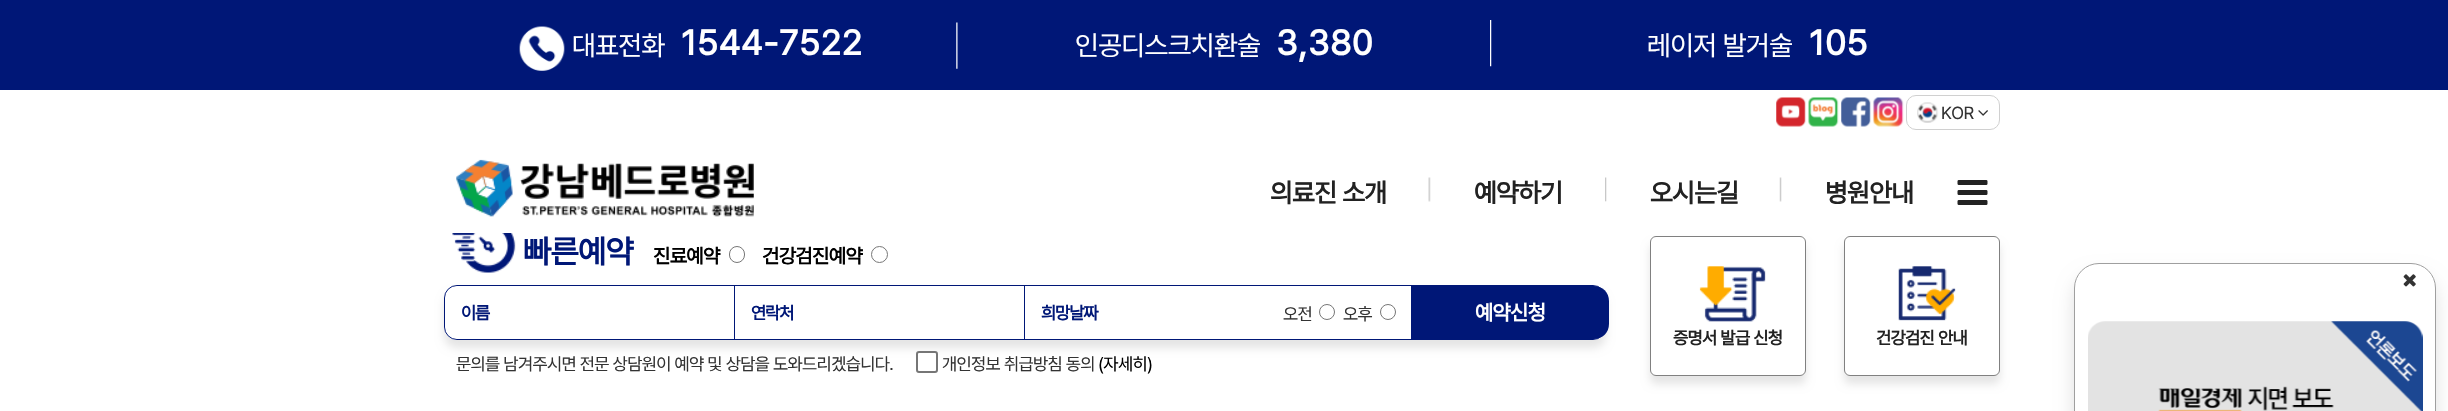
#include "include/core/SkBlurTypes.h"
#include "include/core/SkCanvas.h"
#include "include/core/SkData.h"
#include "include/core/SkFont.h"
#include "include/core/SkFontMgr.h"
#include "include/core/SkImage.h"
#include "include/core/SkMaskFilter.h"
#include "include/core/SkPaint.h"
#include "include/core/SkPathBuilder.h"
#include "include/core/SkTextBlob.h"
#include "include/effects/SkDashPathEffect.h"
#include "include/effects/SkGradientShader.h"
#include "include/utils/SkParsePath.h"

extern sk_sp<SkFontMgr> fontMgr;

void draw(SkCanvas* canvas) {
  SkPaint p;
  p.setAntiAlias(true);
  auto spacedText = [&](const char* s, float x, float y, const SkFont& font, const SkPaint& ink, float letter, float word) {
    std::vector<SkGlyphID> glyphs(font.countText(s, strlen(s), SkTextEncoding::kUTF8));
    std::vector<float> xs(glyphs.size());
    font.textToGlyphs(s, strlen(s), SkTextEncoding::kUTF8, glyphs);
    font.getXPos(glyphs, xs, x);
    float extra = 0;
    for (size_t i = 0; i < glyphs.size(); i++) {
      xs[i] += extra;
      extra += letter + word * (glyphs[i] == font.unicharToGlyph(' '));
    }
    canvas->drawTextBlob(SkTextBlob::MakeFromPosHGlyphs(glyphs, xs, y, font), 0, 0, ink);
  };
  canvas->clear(SK_ColorWHITE);
  p.setColor(SkColorSetRGB(0, 23, 119));
  canvas->drawRect(SkRect::MakeLTRB(0, 0, 2448, 90), p);
  canvas->drawImageRect(SkImages::DeferredFromEncodedData(SkData::MakeFromFileName("images/1.png")), SkRect::MakeLTRB(956, 22, 958, 69), SkSamplingOptions());
  canvas->drawImageRect(SkImages::DeferredFromEncodedData(SkData::MakeFromFileName("images/2.png")), SkRect::MakeLTRB(519, 26, 565, 71), SkSamplingOptions());
  canvas->drawImageRect(SkImages::DeferredFromEncodedData(SkData::MakeFromFileName("images/3.png")), SkRect::MakeLTRB(1490, 20, 1492, 67), SkSamplingOptions());
  canvas->drawImageRect(SkImages::DeferredFromEncodedData(SkData::MakeFromFileName("images/4.png")), SkRect::MakeLTRB(1776, 97, 1806, 127), SkSamplingOptions());
  canvas->drawImageRect(SkImages::DeferredFromEncodedData(SkData::MakeFromFileName("images/5.png")), SkRect::MakeLTRB(1808, 97, 1839, 127), SkSamplingOptions());
  canvas->drawImageRect(SkImages::DeferredFromEncodedData(SkData::MakeFromFileName("images/6.png")), SkRect::MakeLTRB(1841, 97, 1871, 127), SkSamplingOptions());
  canvas->drawImageRect(SkImages::DeferredFromEncodedData(SkData::MakeFromFileName("images/7.png")), SkRect::MakeLTRB(1873, 97, 1904, 127), SkSamplingOptions());
  p.setStyle(SkPaint::kStroke_Style);
  p.setStrokeWidth(1);
  p.setColor(SkColorSetRGB(208, 208, 208));
  canvas->drawRoundRect(SkRect::MakeLTRB(1906.5f, 95.5f, 1999.5f, 129.5f), 9.5f, 9.5f, p);
  canvas->drawImageRect(SkImages::DeferredFromEncodedData(SkData::MakeFromFileName("images/8.png")), SkRect::MakeLTRB(1917, 102, 1939, 123), SkSamplingOptions());
  canvas->drawImageRect(SkImages::DeferredFromEncodedData(SkData::MakeFromFileName("images/9.png")), SkRect::MakeLTRB(1978, 110, 1988, 116), SkSamplingOptions());
  canvas->drawImageRect(SkImages::DeferredFromEncodedData(SkData::MakeFromFileName("images/10.png")), SkRect::MakeLTRB(456, 159, 754, 217), SkSamplingOptions());
  canvas->drawImageRect(SkImages::DeferredFromEncodedData(SkData::MakeFromFileName("images/11.png")), SkRect::MakeLTRB(1428, 177, 1431, 202), SkSamplingOptions());
  canvas->drawImageRect(SkImages::DeferredFromEncodedData(SkData::MakeFromFileName("images/12.png")), SkRect::MakeLTRB(1605, 177, 1607, 202), SkSamplingOptions());
  canvas->drawImageRect(SkImages::DeferredFromEncodedData(SkData::MakeFromFileName("images/13.png")), SkRect::MakeLTRB(1779, 177, 1782, 202), SkSamplingOptions());
  canvas->drawImageRect(SkImages::DeferredFromEncodedData(SkData::MakeFromFileName("images/14.png")), SkRect::MakeLTRB(1957, 180, 1988, 205), SkSamplingOptions());
  canvas->drawImageRect(SkImages::DeferredFromEncodedData(SkData::MakeFromFileName("images/15.png")), SkRect::MakeLTRB(452, 233, 516, 273), SkSamplingOptions());
  p.setColor(SkColorSetRGB(118, 118, 118));
  canvas->drawRoundRect(SkRect::MakeLTRB(729.5f, 246.5f, 744.5f, 262.5f), 7.5f, 7.5f, p);
  canvas->drawCircle(879.5f, 254.5f, 8, p);
  canvas->save();
  canvas->clipPath(SkPathBuilder(SkPathFillType::kEvenOdd).moveTo(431, 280).lineTo(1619, 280).lineTo(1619, 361).lineTo(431, 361).close().moveTo(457, 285).lineTo(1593, 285).cubicTo(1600, 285, 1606, 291, 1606, 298).lineTo(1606, 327).cubicTo(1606, 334, 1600, 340, 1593, 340).lineTo(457, 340).cubicTo(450, 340, 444, 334, 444, 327).lineTo(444, 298).cubicTo(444, 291, 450, 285, 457, 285).close().detach(), true);
  p.setStyle(SkPaint::kFill_Style);
  p.setColor(SkColorSetARGB(26, 0, 0, 0));
  p.setMaskFilter(SkMaskFilter::MakeBlur(kNormal_SkBlurStyle, 4));
  canvas->drawRoundRect(SkRect::MakeLTRB(444, 293, 1606, 348), 13, 13, p);
  p.setMaskFilter(nullptr);
  canvas->restore();
  p.setStyle(SkPaint::kStroke_Style);
  p.setColor(SkColorSetRGB(0, 23, 119));
  canvas->drawRoundRect(SkRect::MakeLTRB(444.5f, 285.5f, 1605.5f, 339.5f), 12.5f, 12.5f, p);
  p.setStyle(SkPaint::kFill_Style);
  canvas->drawRect(SkRect::MakeLTRB(734, 286, 735, 339), p);
  p.setColor(SK_ColorWHITE);
  canvas->drawRoundRect(SkRect::MakeLTRB(445.5f, 286.5f, 733.5f, 338.5f), 14.5f, 14.5f, p);
  p.setStyle(SkPaint::kStroke_Style);
  canvas->drawRoundRect(SkRect::MakeLTRB(445.5f, 286.5f, 733.5f, 338.5f), 14.5f, 14.5f, p);
  p.setStyle(SkPaint::kFill_Style);
  p.setColor(SkColorSetRGB(0, 23, 119));
  canvas->drawRect(SkRect::MakeLTRB(1024, 286, 1025, 339), p);
  p.setStyle(SkPaint::kStroke_Style);
  p.setColor(SkColorSetRGB(118, 118, 118));
  canvas->drawCircle(1327, 312, 7.5f, p);
  canvas->drawCircle(1388, 312, 7.5f, p);
  p.setStyle(SkPaint::kFill_Style);
  p.setColor(SkColorSetRGB(0, 23, 119));
  canvas->drawPath(SkPathBuilder().moveTo(1411, 286).lineTo(1594, 286).cubicTo(1602.5f, 286, 1609, 292.5f, 1609, 301).lineTo(1609, 324).cubicTo(1609, 332.5f, 1602.5f, 339, 1594, 339).lineTo(1411, 339).close().detach(), p);
  p.setColor(SK_ColorWHITE);
  canvas->drawRoundRect(SkRect::MakeLTRB(917, 352, 937, 372), 2, 2, p);
  p.setStyle(SkPaint::kStroke_Style);
  p.setStrokeWidth(2);
  p.setColor(SkColorSetRGB(118, 118, 118));
  canvas->drawRoundRect(SkRect::MakeLTRB(917, 352, 937, 372), 2, 2, p);
  p.setStyle(SkPaint::kFill_Style);
  p.setColor(SkColorSetARGB(26, 0, 0, 0));
  p.setMaskFilter(SkMaskFilter::MakeBlur(kNormal_SkBlurStyle, 4));
  canvas->drawRoundRect(SkRect::MakeLTRB(1650, 244, 1806, 384), 6, 6, p);
  p.setMaskFilter(nullptr);
  p.setColor(SK_ColorWHITE);
  canvas->drawRoundRect(SkRect::MakeLTRB(1650.5f, 236.5f, 1805.5f, 375.5f), 5.5f, 5.5f, p);
  p.setStyle(SkPaint::kStroke_Style);
  p.setStrokeWidth(1);
  p.setColor(SkColorSetRGB(128, 128, 128));
  canvas->drawRoundRect(SkRect::MakeLTRB(1650.5f, 236.5f, 1805.5f, 375.5f), 5.5f, 5.5f, p);
  canvas->drawImageRect(SkImages::DeferredFromEncodedData(SkData::MakeFromFileName("images/16.png")), SkRect::MakeLTRB(1699, 266, 1766, 322), SkSamplingOptions());
  p.setStyle(SkPaint::kFill_Style);
  p.setColor(SkColorSetARGB(26, 0, 0, 0));
  p.setMaskFilter(SkMaskFilter::MakeBlur(kNormal_SkBlurStyle, 4));
  canvas->drawRoundRect(SkRect::MakeLTRB(1844, 244, 2000, 384), 6, 6, p);
  p.setMaskFilter(nullptr);
  p.setColor(SK_ColorWHITE);
  canvas->drawRoundRect(SkRect::MakeLTRB(1844.5f, 236.5f, 1999.5f, 375.5f), 5.5f, 5.5f, p);
  p.setStyle(SkPaint::kStroke_Style);
  p.setColor(SkColorSetRGB(128, 128, 128));
  canvas->drawRoundRect(SkRect::MakeLTRB(1844.5f, 236.5f, 1999.5f, 375.5f), 5.5f, 5.5f, p);
  canvas->drawImageRect(SkImages::DeferredFromEncodedData(SkData::MakeFromFileName("images/17.png")), SkRect::MakeLTRB(1898, 266, 1956, 321), SkSamplingOptions());
  canvas->save();
  canvas->clipPath(SkPathBuilder(SkPathFillType::kEvenOdd).moveTo(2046, 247).lineTo(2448, 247).lineTo(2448, 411).lineTo(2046, 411).close().moveTo(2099, 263).lineTo(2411, 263).cubicTo(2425, 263, 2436, 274, 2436, 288).lineTo(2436, 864).cubicTo(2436, 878, 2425, 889, 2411, 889).lineTo(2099, 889).cubicTo(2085, 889, 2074, 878, 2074, 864).lineTo(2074, 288).cubicTo(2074, 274, 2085, 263, 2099, 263).close().detach(), true);
  p.setStyle(SkPaint::kFill_Style);
  p.setColor(SkColorSetARGB(31, 0, 0, 0));
  p.setMaskFilter(SkMaskFilter::MakeBlur(kNormal_SkBlurStyle, 9));
  canvas->drawRoundRect(SkRect::MakeLTRB(2074, 275, 2436, 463), 25, 25, p);
  p.setMaskFilter(nullptr);
  canvas->restore();
  p.setStyle(SkPaint::kStroke_Style);
  p.setColor(SkColorSetRGB(159, 159, 159));
  canvas->drawRoundRect(SkRect::MakeLTRB(2074.5f, 263.5f, 2435.5f, 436.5f), 24.5f, 24.5f, p);
  canvas->drawImageRect(SkImages::DeferredFromEncodedData(SkData::MakeFromFileName("images/18.png")), SkRect::MakeLTRB(2403, 274, 2416, 287), SkSamplingOptions());
  canvas->drawImageRect(SkImages::DeferredFromEncodedData(SkData::MakeFromFileName("images/19.png")), SkRect::MakeLTRB(2088, 321, 2423, 411), SkSamplingOptions());
  SkFont font1(fontMgr->matchFamilyStyle("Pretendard", SkFontStyle::Normal()), 27.5f);
  font1.setSubpixel(true);
  p.setStyle(SkPaint::kFill_Style);
  p.setColor(SK_ColorWHITE);
  spacedText("대표전화", 572, 55, font1, p, -0.6f, 0);
  SkFont font2(fontMgr->matchFamilyStyle("Pretendard", SkFontStyle::Bold()), 35);
  font2.setSubpixel(true);
  spacedText("1544-7522", 681, 55, font2, p, 0.6f, 0);
  spacedText("인공디스크치환술", 1075, 55, font1, p, -0.6f, 0);
  spacedText("3,380", 1276, 55, font2, p, 0.6f, 0);
  spacedText("레이저 발거술", 1647, 55, font1, p, -0.6f, 0);
  spacedText("105", 1809, 55, font2, p, 0.6f, 0);
  SkFont font3(fontMgr->matchFamilyStyle("Pretendard", SkFontStyle::Normal()), 17.5f);
  font3.setSubpixel(true);
  p.setColor(SkColorSetRGB(51, 51, 51));
  spacedText("KOR", 1941, 119, font3, p, -0.6f, 0);
  SkFont font4(fontMgr->matchFamilyStyle("Pretendard", SkFontStyle::Bold()), 26.25f);
  font4.setSubpixel(true);
  p.setColor(SkColorSetRGB(34, 34, 34));
  spacedText("의료진 소개", 1270, 202, font4, p, -0.6f, 0);
  spacedText("예약하기", 1474, 202, font4, p, -0.6f, 0);
  spacedText("오시는길", 1650, 202, font4, p, -0.6f, 0);
  spacedText("병원안내", 1825, 202, font4, p, -0.6f, 0);
  SkFont font5(fontMgr->matchFamilyStyle("Pretendard", SkFontStyle::Bold()), 32.5f);
  font5.setSubpixel(true);
  p.setColor(SkColorSetRGB(0, 23, 119));
  spacedText("빠른예약", 523, 263, font5, p, -0.6f, 0);
  SkFont font6(fontMgr->matchFamilyStyle("Pretendard", SkFontStyle::Bold()), 20);
  font6.setSubpixel(true);
  p.setColor(SK_ColorBLACK);
  spacedText("진료예약", 653, 263, font6, p, -0.6f, 0);
  spacedText("건강검진예약", 762, 263, font6, p, -0.6f, 0);
  SkFont font7(fontMgr->matchFamilyStyle("Pretendard", SkFontStyle::Bold()), 17.5f);
  font7.setSubpixel(true);
  p.setColor(SkColorSetRGB(0, 23, 119));
  spacedText("이름", 461, 319, font7, p, -1, 0);
  spacedText("연락처", 751, 319, font7, p, -1, 0);
  spacedText("희망날짜", 1041, 319, font7, p, -1, 0);
  p.setColor(SkColorSetRGB(51, 51, 51));
  spacedText("오전", 1283, 320, font3, p, -0.6f, 0);
  spacedText("오후", 1343, 320, font3, p, -0.6f, 0);
  SkFont font8(fontMgr->matchFamilyStyle("Pretendard", SkFontStyle::Bold()), 21);
  font8.setSubpixel(true);
  p.setColor(SK_ColorWHITE);
  spacedText("예약신청", 1475, 320, font8, p, -0.6f, 0);
  p.setColor(SkColorSetRGB(51, 51, 51));
  spacedText("문의를 남겨주시면 전문 상담원이 예약 및 상담을 도와드리겠습니다.", 456, 370, font3, p, -0.6f, 0);
  spacedText("개인정보 취급방침 동의", 942, 370, font3, p, -0.6f, 0);
  p.setColor(SK_ColorBLACK);
  spacedText("(자세히)", 1098, 370, font3, p, -0.6f, 0);
  p.setColor(SkColorSetRGB(34, 34, 34));
  spacedText("증명서 발급 신청", 1673, 344, font7, p, -0.6f, 0);
  spacedText("건강검진 안내", 1876, 344, font7, p, -0.6f, 0);
}
